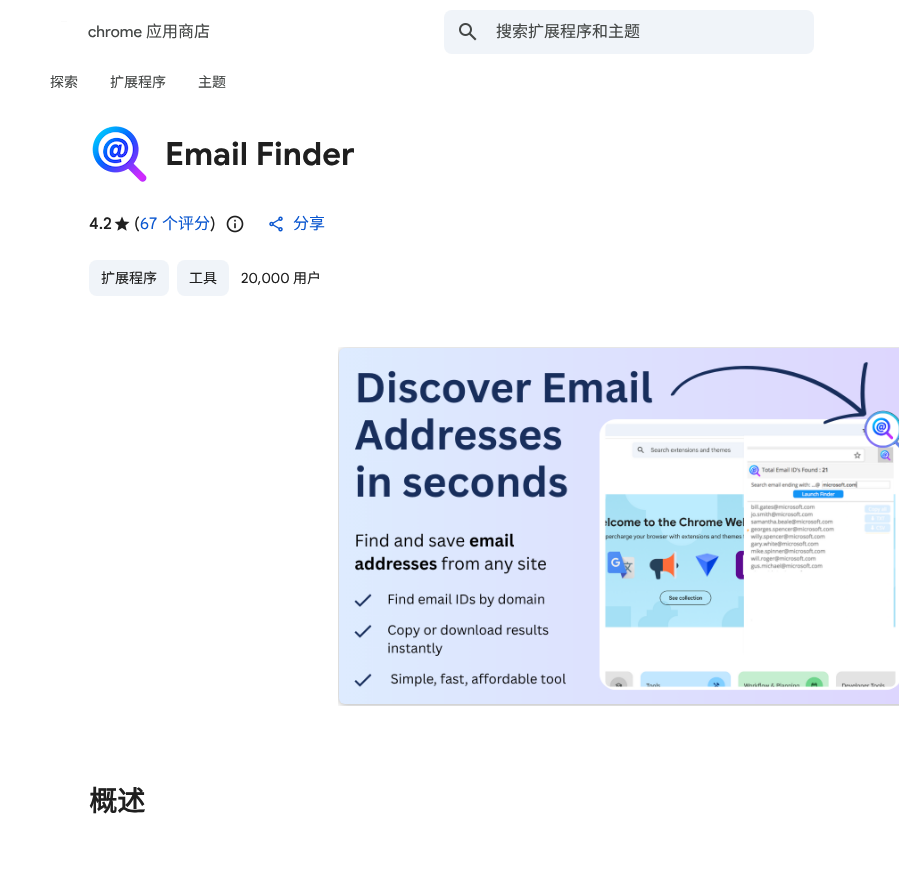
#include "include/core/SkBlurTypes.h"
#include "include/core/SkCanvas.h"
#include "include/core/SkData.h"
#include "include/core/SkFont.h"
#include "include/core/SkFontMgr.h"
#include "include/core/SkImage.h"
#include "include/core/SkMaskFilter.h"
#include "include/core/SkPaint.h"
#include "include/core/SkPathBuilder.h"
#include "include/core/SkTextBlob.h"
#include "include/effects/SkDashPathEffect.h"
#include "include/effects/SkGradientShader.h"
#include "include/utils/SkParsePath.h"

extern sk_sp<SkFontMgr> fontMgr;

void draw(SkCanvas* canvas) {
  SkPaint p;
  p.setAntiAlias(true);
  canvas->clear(SK_ColorWHITE);
  canvas->drawImageRect(SkImages::DeferredFromEncodedData(SkData::MakeFromFileName("images/1.png")), SkRect::MakeLTRB(61, 21, 67, 22), SkSamplingOptions());
  p.setColor(SkColorSetRGB(240, 244, 249));
  canvas->drawRoundRect(SkRect::MakeLTRB(444, 10, 814, 54), 8, 8, p);
  canvas->drawImageRect(SkImages::DeferredFromEncodedData(SkData::MakeFromFileName("images/2.png")), SkRect::MakeLTRB(459, 23, 477, 41), SkSamplingOptions());
  canvas->drawImageRect(SkImages::DeferredFromEncodedData(SkData::MakeFromFileName("images/3.png")), SkRect::MakeLTRB(92, 126, 147, 182), SkSamplingOptions());
  canvas->drawImageRect(SkImages::DeferredFromEncodedData(SkData::MakeFromFileName("images/4.png")), SkRect::MakeLTRB(114, 216, 130, 231), SkSamplingOptions());
  canvas->drawImageRect(SkImages::DeferredFromEncodedData(SkData::MakeFromFileName("images/5.png")), SkRect::MakeLTRB(226, 215, 244, 233), SkSamplingOptions());
  canvas->drawImageRect(SkImages::DeferredFromEncodedData(SkData::MakeFromFileName("images/6.png")), SkRect::MakeLTRB(269, 216, 283, 232), SkSamplingOptions());
  canvas->drawRoundRect(SkRect::MakeLTRB(89, 260, 169, 296), 8, 8, p);
  canvas->drawRoundRect(SkRect::MakeLTRB(177, 260, 229, 296), 8, 8, p);
  canvas->drawImageRect(SkImages::DeferredFromEncodedData(SkData::MakeFromFileName("images/7.png")), SkRect::MakeLTRB(338, 347, 899, 706), SkSamplingOptions());
  SkFont font1(fontMgr->matchFamilyStyle("Product Sans", SkFontStyle::Normal()), 16);
  font1.setSubpixel(true);
  p.setColor(SkColorSetRGB(68, 71, 70));
  canvas->drawString("chrome", 88, 37, font1, p);
  SkFont font2(fontMgr->matchFamilyStyle("Noto Sans CJK SC", SkFontStyle::Normal()), 16);
  font2.setSubpixel(true);
  canvas->drawString("应用商店", 146, 37, font2, p);
  canvas->drawString("搜索扩展程序和主题", 496, 37, font2, p);
  SkFont font3(fontMgr->matchFamilyStyle("Noto Sans CJK SC", SkFontStyle::Normal()), 14);
  font3.setSubpixel(true);
  canvas->drawString("探索", 50, 87, font3, p);
  canvas->drawString("扩展程序", 110, 87, font3, p);
  canvas->drawString("主题", 198, 87, font3, p);
  SkFont font4(fontMgr->matchFamilyStyle("Google Sans", SkFontStyle::Bold()), 32);
  font4.setSubpixel(true);
  p.setColor(SkColorSetRGB(31, 31, 31));
  canvas->drawString("Email Finder", 165, 165, font4, p);
  SkFont font5(fontMgr->matchFamilyStyle("Google Sans", SkFontStyle(500, SkFontStyle::kNormal_Width, SkFontStyle::kUpright_Slant)), 16);
  font5.setSubpixel(true);
  canvas->drawString("4.2", 89, 229, font5, p);
  SkFont font6(fontMgr->matchFamilyStyle("Google Sans", SkFontStyle::Normal()), 16);
  font6.setSubpixel(true);
  canvas->drawString("(", 134, 229, font6, p);
  p.setColor(SkColorSetRGB(11, 87, 208));
  canvas->drawString("67", 140, 229, font6, p);
  canvas->drawString("个评分", 162, 229, font2, p);
  p.setColor(SkColorSetRGB(31, 31, 31));
  canvas->drawString(")", 210, 229, font6, p);
  p.setColor(SkColorSetRGB(11, 87, 208));
  canvas->drawString("分享", 293, 229, font2, p);
  p.setColor(SkColorSetRGB(31, 31, 31));
  canvas->drawString("扩展程序", 101, 283, font3, p);
  canvas->drawString("工具", 189, 283, font3, p);
  SkFont font7(fontMgr->matchFamilyStyle("Google Sans", SkFontStyle::Normal()), 14);
  font7.setSubpixel(true);
  canvas->drawString("20,000", 241, 283, font7, p);
  canvas->drawString("用户", 293, 283, font3, p);
  SkFont font8(fontMgr->matchFamilyStyle("Noto Sans CJK SC", SkFontStyle::Bold()), 28);
  font8.setSubpixel(true);
  canvas->drawString("概述", 89, 811, font8, p);
}
